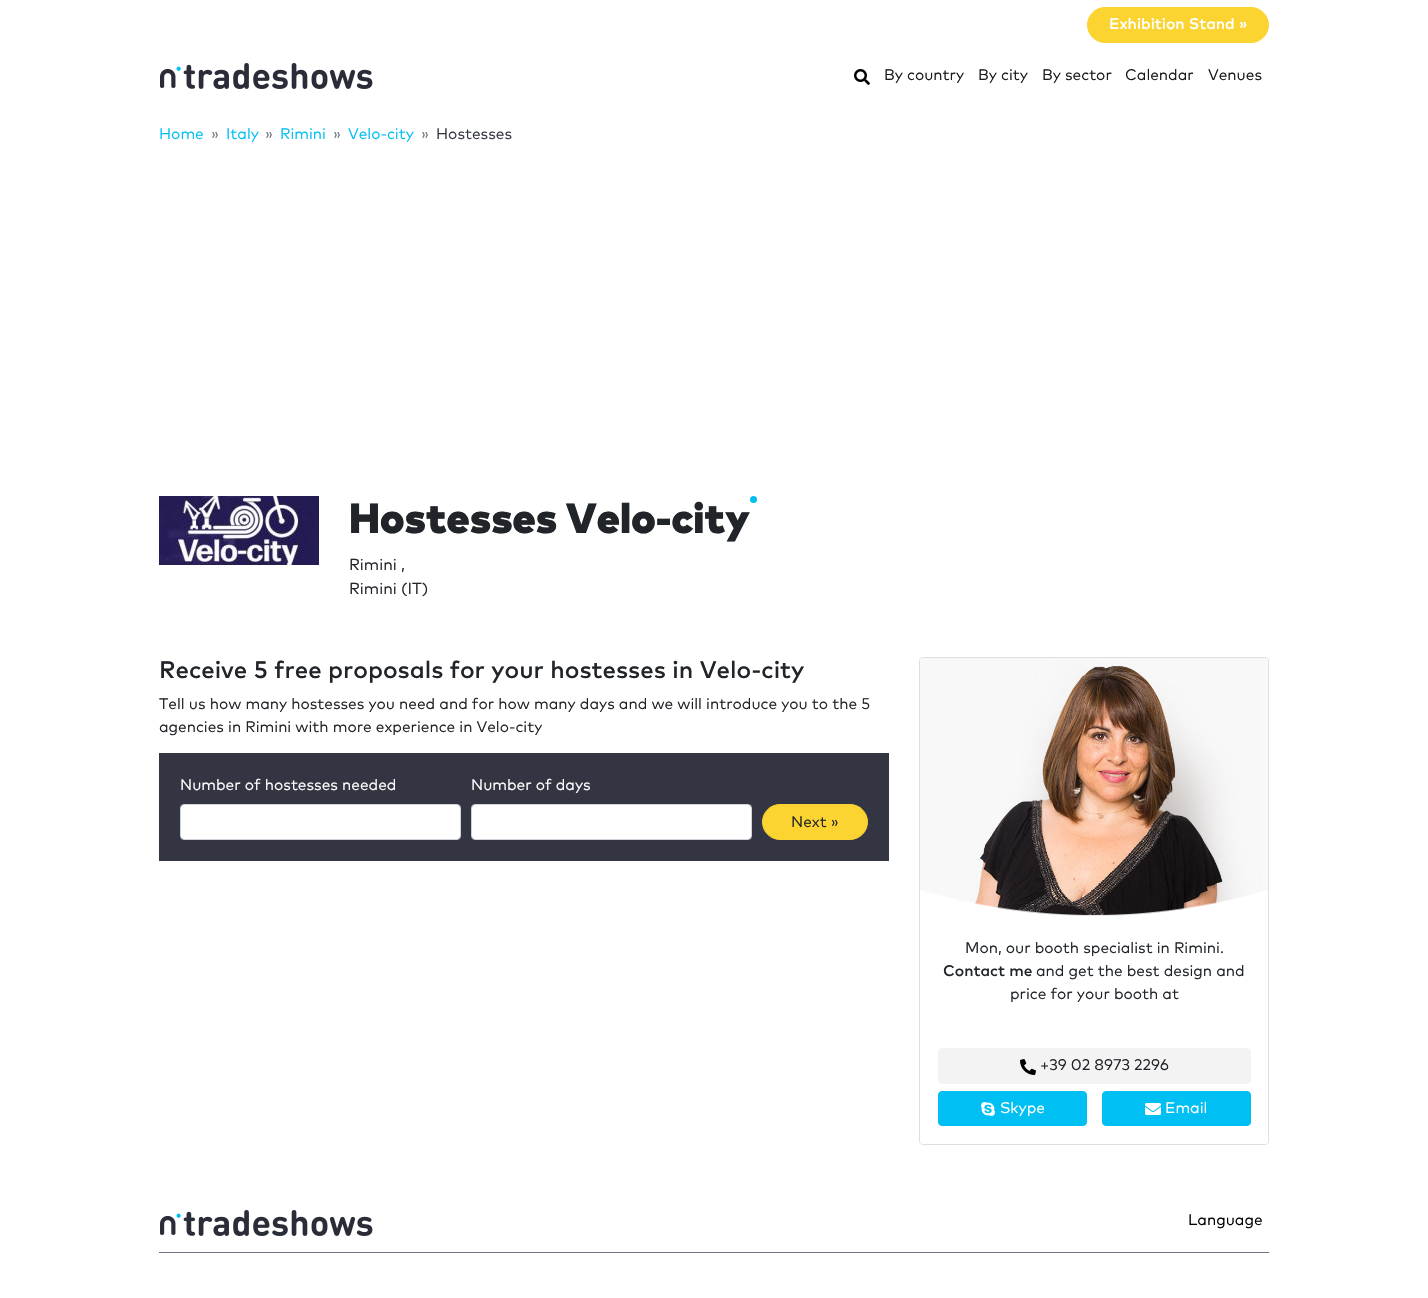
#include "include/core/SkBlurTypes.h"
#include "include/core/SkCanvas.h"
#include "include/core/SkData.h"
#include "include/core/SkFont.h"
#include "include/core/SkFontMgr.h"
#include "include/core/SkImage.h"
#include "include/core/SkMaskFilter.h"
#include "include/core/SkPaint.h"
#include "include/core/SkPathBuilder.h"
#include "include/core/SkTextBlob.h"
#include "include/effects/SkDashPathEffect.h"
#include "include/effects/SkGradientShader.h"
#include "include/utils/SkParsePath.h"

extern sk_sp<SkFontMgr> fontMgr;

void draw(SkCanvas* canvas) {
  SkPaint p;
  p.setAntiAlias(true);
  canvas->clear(SK_ColorWHITE);
  p.setColor(SkColorSetRGB(251, 212, 49));
  canvas->drawRoundRect(SkRect::MakeLTRB(1087.5f, 7.5f, 1268.5f, 42.5f), 17.5f, 17.5f, p);
  p.setStyle(SkPaint::kStroke_Style);
  p.setStrokeWidth(1);
  canvas->drawRoundRect(SkRect::MakeLTRB(1087.5f, 7.5f, 1268.5f, 42.5f), 17.5f, 17.5f, p);
  canvas->drawImageRect(SkImages::DeferredFromEncodedData(SkData::MakeFromFileName("images/1.png")), SkRect::MakeLTRB(160, 63, 373, 89), SkSamplingOptions());
  canvas->drawImageRect(SkImages::DeferredFromEncodedData(SkData::MakeFromFileName("images/2.png")), SkRect::MakeLTRB(854, 69, 870, 85), SkSamplingOptions());
  canvas->drawImageRect(SkImages::DeferredFromEncodedData(SkData::MakeFromFileName("images/3.png")), SkRect::MakeLTRB(159, 496, 319, 565), SkSamplingOptions());
  p.setStyle(SkPaint::kFill_Style);
  p.setColor(SkColorSetRGB(0, 191, 242));
  canvas->drawCircle(753.5f, 499.5f, 3.5f, p);
  p.setColor(SkColorSetRGB(51, 54, 66));
  canvas->drawRect(SkRect::MakeLTRB(159, 753, 889, 861), p);
  p.setColor(SK_ColorWHITE);
  canvas->drawRoundRect(SkRect::MakeLTRB(181, 805, 460, 839), 2.5f, 2.5f, p);
  p.setStyle(SkPaint::kStroke_Style);
  p.setColor(SkColorSetRGB(206, 212, 218));
  canvas->drawRoundRect(SkRect::MakeLTRB(180.5f, 804.5f, 460.5f, 839.5f), 3.5f, 3.5f, p);
  p.setStyle(SkPaint::kFill_Style);
  p.setColor(SK_ColorWHITE);
  canvas->drawRoundRect(SkRect::MakeLTRB(472, 805, 751, 839), 2.5f, 2.5f, p);
  p.setStyle(SkPaint::kStroke_Style);
  p.setColor(SkColorSetRGB(206, 212, 218));
  canvas->drawRoundRect(SkRect::MakeLTRB(471.5f, 804.5f, 751.5f, 839.5f), 3.5f, 3.5f, p);
  p.setStyle(SkPaint::kFill_Style);
  p.setColor(SkColorSetRGB(251, 212, 49));
  canvas->drawRoundRect(SkRect::MakeLTRB(762.5f, 804.5f, 867.5f, 839.5f), 17.5f, 17.5f, p);
  p.setStyle(SkPaint::kStroke_Style);
  canvas->drawRoundRect(SkRect::MakeLTRB(762.5f, 804.5f, 867.5f, 839.5f), 17.5f, 17.5f, p);
  p.setColor(SkColorSetRGB(223, 223, 223));
  canvas->drawRoundRect(SkRect::MakeLTRB(919.5f, 657.5f, 1268.5f, 1144.5f), 3.5f, 3.5f, p);
  canvas->drawImageRect(SkImages::DeferredFromEncodedData(SkData::MakeFromFileName("images/4.png")), SkRect::MakeLTRB(920, 658, 1268, 916), SkSamplingOptions());
  canvas->drawImageRect(SkImages::DeferredFromEncodedData(SkData::MakeFromFileName("images/5.png")), SkRect::MakeLTRB(920, 890, 1268, 919), SkSamplingOptions());
  p.setStyle(SkPaint::kFill_Style);
  p.setColor(SK_ColorWHITE);
  canvas->drawPath(SkPathBuilder().moveTo(920, 1038).lineTo(1268, 1038).lineTo(1268, 1141.5f).cubicTo(1268, 1143, 1267, 1144, 1265.5f, 1144).lineTo(922.5f, 1144).cubicTo(921, 1144, 920, 1143, 920, 1141.5f).close().detach(), p);
  p.setColor(SkColorSetRGB(243, 243, 244));
  canvas->drawRoundRect(SkRect::MakeLTRB(938.5f, 1048.5f, 1250.5f, 1083.5f), 3.5f, 3.5f, p);
  p.setStyle(SkPaint::kStroke_Style);
  canvas->drawRoundRect(SkRect::MakeLTRB(938.5f, 1048.5f, 1250.5f, 1083.5f), 3.5f, 3.5f, p);
  canvas->drawImageRect(SkImages::DeferredFromEncodedData(SkData::MakeFromFileName("images/6.png")), SkRect::MakeLTRB(1020, 1059, 1036, 1075), SkSamplingOptions());
  p.setStyle(SkPaint::kFill_Style);
  p.setColor(SkColorSetRGB(0, 191, 242));
  canvas->drawRoundRect(SkRect::MakeLTRB(938.5f, 1091.5f, 1086.5f, 1125.5f), 3.5f, 3.5f, p);
  p.setStyle(SkPaint::kStroke_Style);
  canvas->drawRoundRect(SkRect::MakeLTRB(938.5f, 1091.5f, 1086.5f, 1125.5f), 3.5f, 3.5f, p);
  canvas->drawImageRect(SkImages::DeferredFromEncodedData(SkData::MakeFromFileName("images/7.png")), SkRect::MakeLTRB(981, 1102, 995, 1116), SkSamplingOptions());
  p.setStyle(SkPaint::kFill_Style);
  canvas->drawRoundRect(SkRect::MakeLTRB(1102.5f, 1091.5f, 1250.5f, 1125.5f), 3.5f, 3.5f, p);
  p.setStyle(SkPaint::kStroke_Style);
  canvas->drawRoundRect(SkRect::MakeLTRB(1102.5f, 1091.5f, 1250.5f, 1125.5f), 3.5f, 3.5f, p);
  canvas->drawImageRect(SkImages::DeferredFromEncodedData(SkData::MakeFromFileName("images/8.png")), SkRect::MakeLTRB(1145, 1103, 1161, 1115), SkSamplingOptions());
  canvas->drawImageRect(SkImages::DeferredFromEncodedData(SkData::MakeFromFileName("images/1.png")), SkRect::MakeLTRB(160, 1210, 373, 1236), SkSamplingOptions());
  p.setStyle(SkPaint::kFill_Style);
  p.setColor(SkColorSetRGB(108, 117, 125));
  canvas->drawRect(SkRect::MakeLTRB(159, 1252, 1269, 1253), p);
  SkFont font1(fontMgr->matchFamilyStyle("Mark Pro", SkFontStyle(500, SkFontStyle::kNormal_Width, SkFontStyle::kUpright_Slant)), 15.4f);
  font1.setSubpixel(true);
  p.setColor(SK_ColorWHITE);
  canvas->drawString("Exhibition Stand »", 1109, 29, font1, p);
  SkFont font2(fontMgr->matchFamilyStyle("Mark Pro", SkFontStyle::Normal()), 15.4f);
  font2.setSubpixel(true);
  p.setColor(SkColorSetRGB(26, 26, 26));
  canvas->drawString("By country", 884, 80, font2, p);
  canvas->drawString("By city", 978, 80, font2, p);
  canvas->drawString("By sector", 1042, 80, font2, p);
  canvas->drawString("Calendar", 1125, 80, font2, p);
  canvas->drawString("Venues", 1208, 80, font2, p);
  p.setColor(SkColorSetRGB(0, 191, 242));
  canvas->drawString("Home", 159, 139, font2, p);
  p.setColor(SkColorSetRGB(108, 117, 125));
  canvas->drawString("»", 211, 139, font2, p);
  p.setColor(SkColorSetRGB(0, 191, 242));
  canvas->drawString("Italy", 226, 139, font2, p);
  p.setColor(SkColorSetRGB(108, 117, 125));
  canvas->drawString("»", 265, 139, font2, p);
  p.setColor(SkColorSetRGB(0, 191, 242));
  canvas->drawString("Rimini", 280, 139, font2, p);
  p.setColor(SkColorSetRGB(108, 117, 125));
  canvas->drawString("»", 333, 139, font2, p);
  p.setColor(SkColorSetRGB(0, 191, 242));
  canvas->drawString("Velo-city", 348, 139, font2, p);
  p.setColor(SkColorSetRGB(108, 117, 125));
  canvas->drawString("»", 421, 139, font2, p);
  p.setColor(SkColorSetRGB(51, 54, 66));
  canvas->drawString("Hostesses", 436, 139, font2, p);
  SkFont font3(fontMgr->matchFamilyStyle("Mark Pro", SkFontStyle(900, SkFontStyle::kNormal_Width, SkFontStyle::kUpright_Slant)), 42);
  font3.setSubpixel(true);
  p.setColor(SkColorSetRGB(33, 37, 41));
  canvas->drawString("Hostesses Velo-city", 349, 533, font3, p);
  SkFont font4(fontMgr->matchFamilyStyle("Mark Pro", SkFontStyle::Normal()), 16);
  font4.setSubpixel(true);
  canvas->drawString("Rimini ,", 349, 570, font4, p);
  canvas->drawString("Rimini (IT)", 349, 594, font4, p);
  SkFont font5(fontMgr->matchFamilyStyle("Mark Pro", SkFontStyle(500, SkFontStyle::kNormal_Width, SkFontStyle::kUpright_Slant)), 24);
  font5.setSubpixel(true);
  canvas->drawString("Receive 5 free proposals for your hostesses in Velo-city", 159, 678, font5, p);
  canvas->drawString("Tell us how many hostesses you need and for how many days and we will introduce you to the 5", 159, 709, font2, p);
  canvas->drawString("agencies in Rimini with more experience in Velo-city", 159, 732, font2, p);
  p.setColor(SK_ColorWHITE);
  canvas->drawString("Number of hostesses needed", 180, 790, font2, p);
  canvas->drawString("Number of days", 471, 790, font2, p);
  p.setColor(SkColorSetRGB(33, 37, 41));
  canvas->drawString("Next »", 791, 827, font2, p);
  canvas->drawString("Mon, our booth specialist in Rimini.", 965, 953, font2, p);
  canvas->drawString("Contact me", 943, 976, font1, p);
  canvas->drawString("and get the best design and", 1036, 976, font2, p);
  canvas->drawString("price for your booth at", 1010, 999, font2, p);
  canvas->drawString("+39 02 8973 2296", 1040, 1070, font2, p);
  p.setColor(SK_ColorWHITE);
  canvas->drawString("Skype", 1000, 1113, font2, p);
  canvas->drawString("Email", 1165, 1113, font2, p);
  p.setColor(SK_ColorBLACK);
  canvas->drawString("Language", 1188, 1225, font2, p);
}
